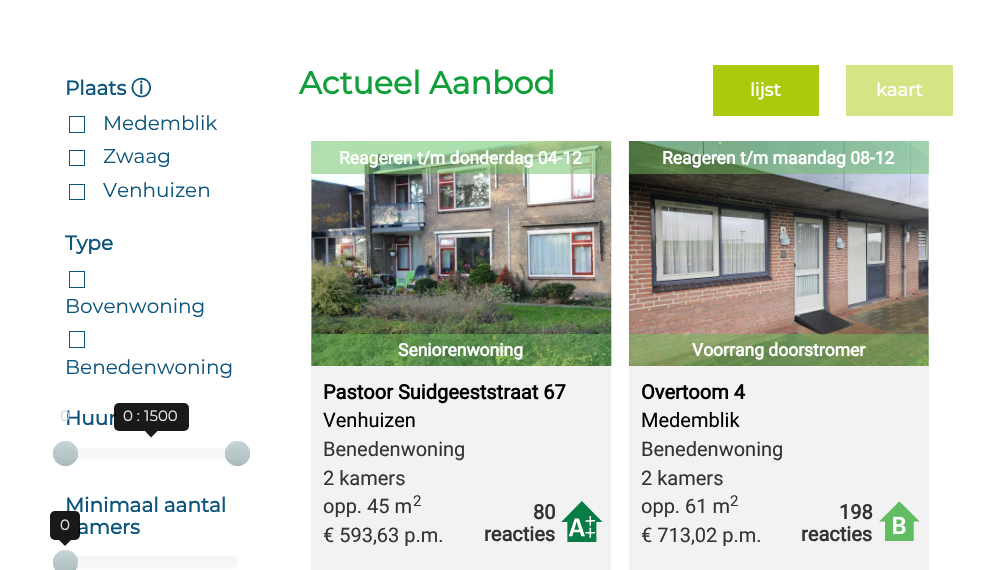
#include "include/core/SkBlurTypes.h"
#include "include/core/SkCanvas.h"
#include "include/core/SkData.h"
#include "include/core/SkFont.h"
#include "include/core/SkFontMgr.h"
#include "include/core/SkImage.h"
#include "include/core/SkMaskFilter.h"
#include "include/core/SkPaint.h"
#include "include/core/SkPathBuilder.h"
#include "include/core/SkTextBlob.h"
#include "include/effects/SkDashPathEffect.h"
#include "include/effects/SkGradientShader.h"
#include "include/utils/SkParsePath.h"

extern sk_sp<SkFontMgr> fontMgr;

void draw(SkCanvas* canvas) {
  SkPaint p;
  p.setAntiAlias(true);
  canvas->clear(SK_ColorWHITE);
  p.setStyle(SkPaint::kStroke_Style);
  p.setStrokeWidth(1);
  p.setColor(SkColorSetRGB(13, 85, 125));
  canvas->drawRect(SkRect::MakeLTRB(69.5f, 116.5f, 84.5f, 132.5f), p);
  canvas->drawRect(SkRect::MakeLTRB(69.5f, 150.5f, 84.5f, 165.5f), p);
  canvas->drawRect(SkRect::MakeLTRB(69.5f, 184.5f, 84.5f, 199.5f), p);
  canvas->drawRect(SkRect::MakeLTRB(69.5f, 271.5f, 84.5f, 287.5f), p);
  canvas->drawRect(SkRect::MakeLTRB(69.5f, 331.5f, 84.5f, 347.5f), p);
  p.setStyle(SkPaint::kFill_Style);
  p.setColor(SkColorSetRGB(26, 26, 26));
  canvas->drawPath(SkPathBuilder().moveTo(145, 431).lineTo(157.5f, 431).lineTo(151, 437.5f).close().detach(), p);
  {
    const SkColor colors[] = {SkColorSetRGB(245, 245, 245), SkColorSetRGB(249, 249, 249)};
    const float stops[] = {0, 1};
    const SkPoint ends[] = {{151, 448}, {151, 460}};
    p.setShader(SkGradientShader::MakeLinear(ends, colors, stops, 2, SkTileMode::kClamp));
    p.setAlpha(255);
  }
  canvas->drawRoundRect(SkRect::MakeLTRB(65, 448, 238, 460), 5, 5, p);
  p.setShader(nullptr);
  p.setColor(SkColorSetARGB(204, 58, 148, 165));
  canvas->drawCircle(65.5f, 453.5f, 12.5f, p);
  {
    const SkColor colors[] = {SkColorSetARGB(204, 223, 223, 223), SkColorSetARGB(204, 190, 190, 190)};
    const float stops[] = {0, 1};
    const SkPoint ends[] = {{65, 441}, {65, 466}};
    p.setShader(SkGradientShader::MakeLinear(ends, colors, stops, 2, SkTileMode::kClamp));
    p.setAlpha(255);
  }
  canvas->drawCircle(65.5f, 453.5f, 12.5f, p);
  p.setShader(nullptr);
  p.setColor(SkColorSetARGB(41, 255, 255, 255));
  canvas->drawPath(SkPathBuilder().moveTo(65, 442).cubicTo(75, 442, 79, 452.5f, 76, 460).cubicTo(83.5f, 448, 67, 434, 56.5f, 444.5f).cubicTo(54, 447, 53, 450.5f, 53, 454).cubicTo(53.5f, 448, 57.5f, 442, 65, 442).close().detach(), p);
  p.setColor(SkColorSetARGB(204, 58, 148, 165));
  canvas->drawCircle(237.5f, 453.5f, 12.5f, p);
  {
    const SkColor colors[] = {SkColorSetARGB(204, 223, 223, 223), SkColorSetARGB(204, 190, 190, 190)};
    const float stops[] = {0, 1};
    const SkPoint ends[] = {{238, 441}, {238, 466}};
    p.setShader(SkGradientShader::MakeLinear(ends, colors, stops, 2, SkTileMode::kClamp));
    p.setAlpha(255);
  }
  canvas->drawCircle(237.5f, 453.5f, 12.5f, p);
  p.setShader(nullptr);
  p.setColor(SkColorSetARGB(41, 255, 255, 255));
  canvas->drawPath(SkPathBuilder().moveTo(238, 442).cubicTo(245.5f, 442, 249.5f, 448, 250, 454).cubicTo(250, 451.5f, 249.5f, 449, 248, 446.5f).cubicTo(240, 435, 222.5f, 443, 225.5f, 456).cubicTo(224.5f, 449.5f, 229, 442, 238, 442).close().detach(), p);
  p.setColor(SkColorSetRGB(26, 26, 26));
  canvas->drawPath(SkPathBuilder().moveTo(59, 540).lineTo(71, 540).lineTo(65, 546).close().detach(), p);
  {
    const SkColor colors[] = {SkColorSetRGB(245, 245, 245), SkColorSetRGB(249, 249, 249)};
    const float stops[] = {0, 1};
    const SkPoint ends[] = {{151, 556}, {151, 569}};
    p.setShader(SkGradientShader::MakeLinear(ends, colors, stops, 2, SkTileMode::kClamp));
    p.setAlpha(255);
  }
  canvas->drawRoundRect(SkRect::MakeLTRB(65, 556, 238, 569), 5, 5, p);
  p.setShader(nullptr);
  p.setColor(SkColorSetARGB(204, 58, 148, 165));
  canvas->drawCircle(65.5f, 562.5f, 12.5f, p);
  {
    const SkColor colors[] = {SkColorSetARGB(204, 223, 223, 223), SkColorSetARGB(204, 190, 190, 190)};
    const float stops[] = {0, 1};
    const SkPoint ends[] = {{65, 550}, {65, 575}};
    p.setShader(SkGradientShader::MakeLinear(ends, colors, stops, 2, SkTileMode::kClamp));
    p.setAlpha(255);
  }
  canvas->drawCircle(65.5f, 562.5f, 12.5f, p);
  p.setShader(nullptr);
  p.setColor(SkColorSetARGB(41, 255, 255, 255));
  canvas->drawPath(SkPathBuilder().moveTo(65, 551).cubicTo(76, 551, 79.5f, 563, 75, 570.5f).cubicTo(85, 558.5f, 68, 542.5f, 56.5f, 553.5f).cubicTo(54, 556, 53, 559.5f, 53, 563).cubicTo(53, 557, 57, 551, 65, 551).close().detach(), p);
  p.setColor(SkColorSetRGB(172, 201, 13));
  canvas->drawRect(SkRect::MakeLTRB(713, 65, 819, 116), p);
  p.setColor(SkColorSetRGB(214, 228, 134));
  canvas->drawRect(SkRect::MakeLTRB(846, 65, 953, 116), p);
  canvas->drawImageRect(SkImages::DeferredFromEncodedData(SkData::MakeFromFileName("images/1.png")), SkRect::MakeLTRB(311, 141, 612, 366), SkSamplingOptions());
  p.setColor(SkColorSetARGB(128, 110, 192, 93));
  canvas->drawRect(SkRect::MakeLTRB(311, 141, 611, 174), p);
  canvas->drawRect(SkRect::MakeLTRB(311, 334, 611, 366), p);
  p.setColor(SkColorSetRGB(242, 242, 242));
  canvas->drawRect(SkRect::MakeLTRB(311, 366, 611, 570), p);
  canvas->drawImageRect(SkImages::DeferredFromEncodedData(SkData::MakeFromFileName("images/2.png")), SkRect::MakeLTRB(561, 501, 603, 542), SkSamplingOptions());
  canvas->drawImageRect(SkImages::DeferredFromEncodedData(SkData::MakeFromFileName("images/3.png")), SkRect::MakeLTRB(628, 141, 929, 366), SkSamplingOptions());
  p.setColor(SkColorSetARGB(128, 110, 192, 93));
  canvas->drawRect(SkRect::MakeLTRB(629, 141, 929, 174), p);
  canvas->drawRect(SkRect::MakeLTRB(629, 334, 929, 366), p);
  p.setColor(SkColorSetRGB(242, 242, 242));
  canvas->drawRect(SkRect::MakeLTRB(629, 366, 929, 570), p);
  canvas->drawImageRect(SkImages::DeferredFromEncodedData(SkData::MakeFromFileName("images/4.png")), SkRect::MakeLTRB(879, 501, 920, 541), SkSamplingOptions());
  SkFont font1(fontMgr->matchFamilyStyle("Montserrat", SkFontStyle::Bold()), 20);
  font1.setSubpixel(true);
  p.setColor(SkColorSetRGB(13, 85, 125));
  canvas->drawString("Plaats", 65, 95, font1, p);
  SkFont font2(fontMgr->matchFamilyStyle("WenQuanYi Zen Hei", SkFontStyle::Bold()), 20);
  font2.setSubpixel(true);
  canvas->drawString("ⓘ", 131, 95, font2, p);
  SkFont font3(fontMgr->matchFamilyStyle("Montserrat", SkFontStyle(100, SkFontStyle::kNormal_Width, SkFontStyle::kUpright_Slant)), 20);
  font3.setSubpixel(true);
  canvas->drawString("Medemblik", 103, 130, font3, p);
  canvas->drawString("Zwaag", 103, 163, font3, p);
  canvas->drawString("Venhuizen", 103, 197, font3, p);
  canvas->drawString("Type", 65, 250, font1, p);
  canvas->drawString("Bovenwoning", 65, 313, font3, p);
  canvas->drawString("Benedenwoning", 65, 374, font3, p);
  canvas->drawString("Huur", 65, 425, font1, p);
  SkFont font4(fontMgr->matchFamilyStyle("Montserrat", SkFontStyle(100, SkFontStyle::kNormal_Width, SkFontStyle::kUpright_Slant)), 15);
  font4.setSubpixel(true);
  p.setColor(SkColorSetRGB(203, 218, 227));
  canvas->drawString("0", 60, 421, font4, p);
  p.setColor(SkColorSetARGB(230, 0, 0, 0));
  canvas->drawRoundRect(SkRect::MakeLTRB(114, 403, 189, 431), 5, 5, p);
  p.setColor(SkColorSetRGB(232, 232, 232));
  canvas->drawString("0 : 1500", 123, 421, font4, p);
  p.setColor(SkColorSetRGB(13, 85, 125));
  canvas->drawString("Minimaal aantal", 65, 512, font1, p);
  canvas->drawString("amers", 77, 534, font1, p);
  p.setColor(SkColorSetARGB(230, 0, 0, 0));
  canvas->drawRoundRect(SkRect::MakeLTRB(50, 511, 80, 540), 5, 5, p);
  p.setColor(SkColorSetRGB(232, 232, 232));
  canvas->drawString("0", 60, 530, font4, p);
  SkFont font5(fontMgr->matchFamilyStyle("Montserrat", SkFontStyle::Bold()), 31.75f);
  font5.setSubpixel(true);
  p.setColor(SkColorSetRGB(17, 159, 57));
  canvas->drawString("Actueel Aanbod", 299, 94, font5, p);
  SkFont font6(fontMgr->matchFamilyStyle("Montserrat", SkFontStyle::Bold()), 18);
  font6.setSubpixel(true);
  p.setColor(SK_ColorWHITE);
  canvas->drawString("lijst", 750, 96, font6, p);
  canvas->drawString("kaart", 876, 96, font6, p);
  SkFont font7(fontMgr->matchFamilyStyle("Roboto", SkFontStyle::Bold()), 17.5f);
  font7.setSubpixel(true);
  canvas->drawString("Reageren t/m donderdag 04-12", 339, 164, font7, p);
  canvas->drawString("Seniorenwoning", 398, 356, font7, p);
  SkFont font8(fontMgr->matchFamilyStyle("Roboto", SkFontStyle::Bold()), 20);
  font8.setSubpixel(true);
  p.setColor(SK_ColorBLACK);
  canvas->drawString("Pastoor Suidgeeststraat 67", 323, 399, font8, p);
  SkFont font9(fontMgr->matchFamilyStyle("Roboto", SkFontStyle::Normal()), 20);
  font9.setSubpixel(true);
  canvas->drawString("Venhuizen", 323, 427, font9, p);
  p.setColor(SkColorSetRGB(51, 51, 51));
  canvas->drawString("Benedenwoning", 323, 456, font9, p);
  canvas->drawString("2 kamers", 323, 485, font9, p);
  canvas->drawString("opp. 45 m", 323, 513, font9, p);
  SkFont font10(fontMgr->matchFamilyStyle("Roboto", SkFontStyle::Normal()), 15);
  font10.setSubpixel(true);
  canvas->drawString("2", 413, 506, font10, p);
  canvas->drawString("€ 593,63 p.m.", 323, 542, font9, p);
  canvas->drawString("80", 533, 519, font8, p);
  canvas->drawString("reacties", 484, 541, font8, p);
  p.setColor(SK_ColorWHITE);
  canvas->drawString("Reageren t/m maandag 08-12", 662, 164, font7, p);
  canvas->drawString("Voorrang doorstromer", 692, 356, font7, p);
  p.setColor(SK_ColorBLACK);
  canvas->drawString("Overtoom 4", 641, 399, font8, p);
  canvas->drawString("Medemblik", 641, 427, font9, p);
  p.setColor(SkColorSetRGB(51, 51, 51));
  canvas->drawString("Benedenwoning", 641, 456, font9, p);
  canvas->drawString("2 kamers", 641, 485, font9, p);
  canvas->drawString("opp. 61 m", 641, 513, font9, p);
  canvas->drawString("2", 730, 506, font10, p);
  canvas->drawString("€ 713,02 p.m.", 641, 542, font9, p);
  canvas->drawString("198", 839, 519, font8, p);
  canvas->drawString("reacties", 801, 541, font8, p);
}
